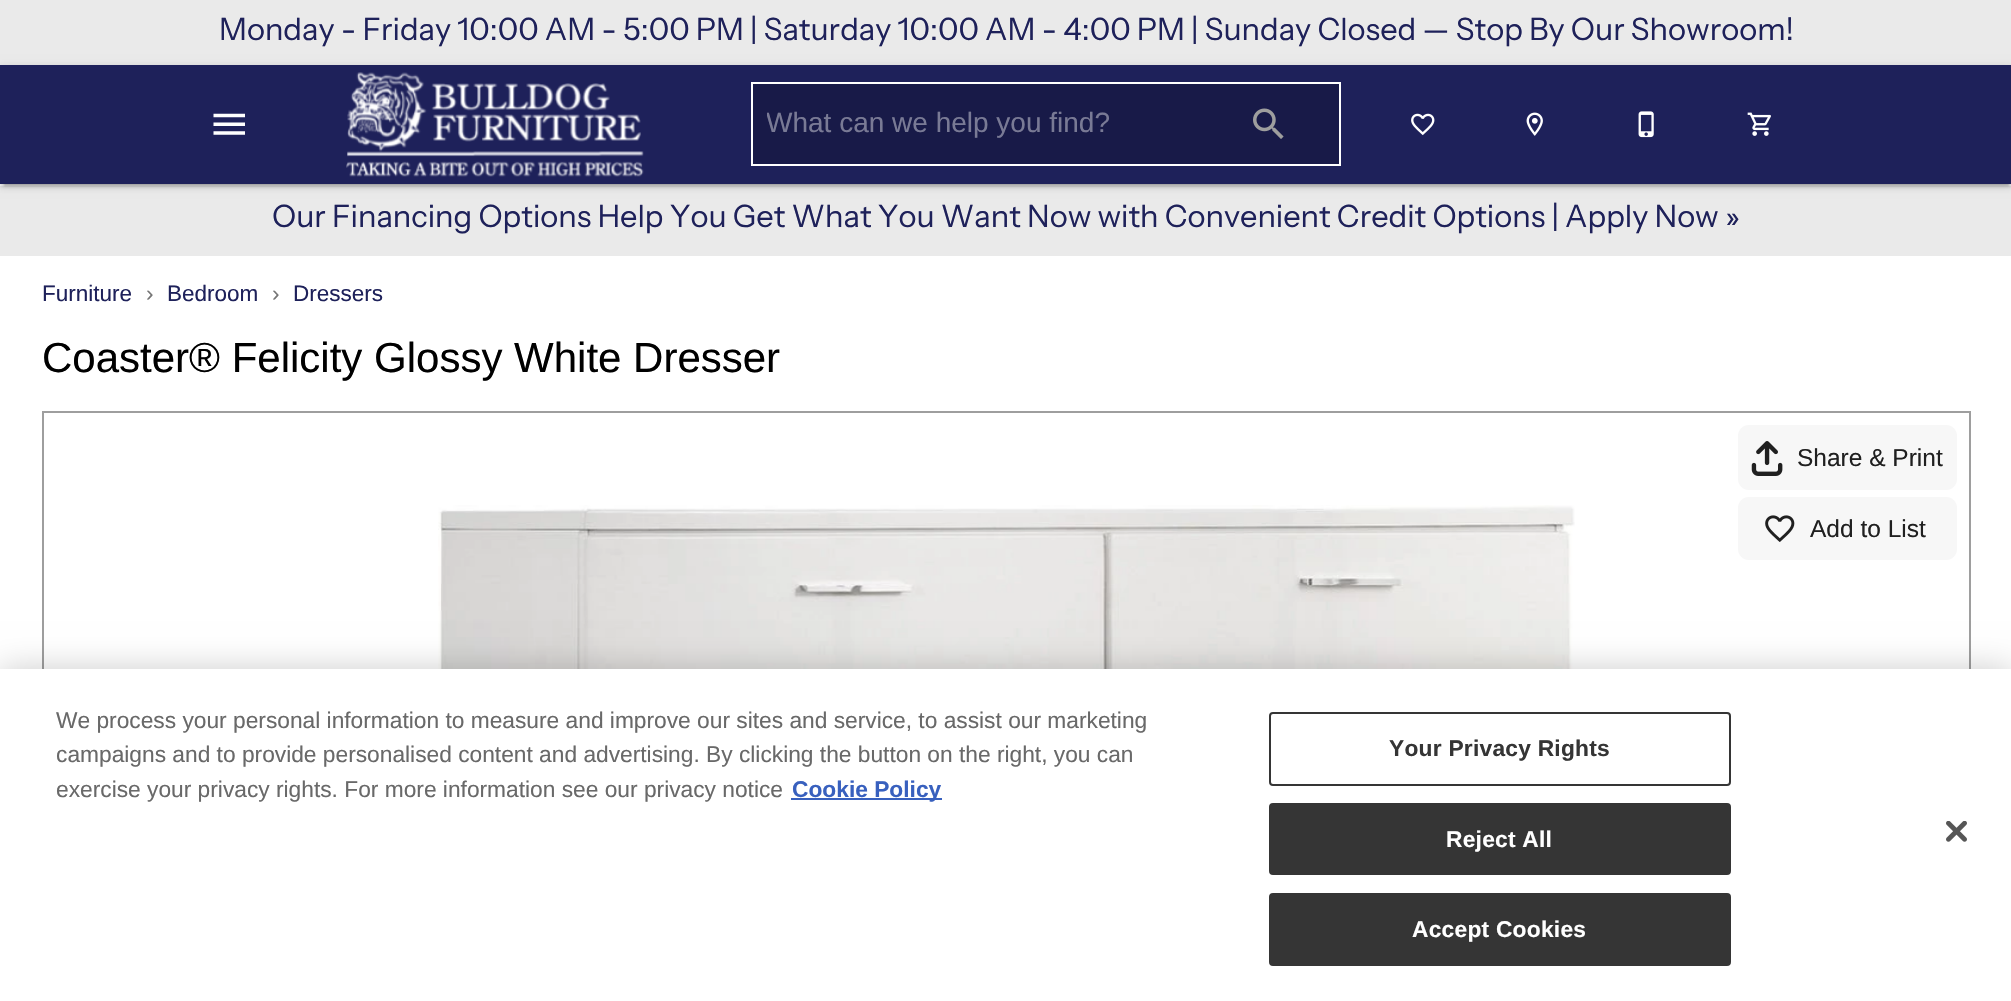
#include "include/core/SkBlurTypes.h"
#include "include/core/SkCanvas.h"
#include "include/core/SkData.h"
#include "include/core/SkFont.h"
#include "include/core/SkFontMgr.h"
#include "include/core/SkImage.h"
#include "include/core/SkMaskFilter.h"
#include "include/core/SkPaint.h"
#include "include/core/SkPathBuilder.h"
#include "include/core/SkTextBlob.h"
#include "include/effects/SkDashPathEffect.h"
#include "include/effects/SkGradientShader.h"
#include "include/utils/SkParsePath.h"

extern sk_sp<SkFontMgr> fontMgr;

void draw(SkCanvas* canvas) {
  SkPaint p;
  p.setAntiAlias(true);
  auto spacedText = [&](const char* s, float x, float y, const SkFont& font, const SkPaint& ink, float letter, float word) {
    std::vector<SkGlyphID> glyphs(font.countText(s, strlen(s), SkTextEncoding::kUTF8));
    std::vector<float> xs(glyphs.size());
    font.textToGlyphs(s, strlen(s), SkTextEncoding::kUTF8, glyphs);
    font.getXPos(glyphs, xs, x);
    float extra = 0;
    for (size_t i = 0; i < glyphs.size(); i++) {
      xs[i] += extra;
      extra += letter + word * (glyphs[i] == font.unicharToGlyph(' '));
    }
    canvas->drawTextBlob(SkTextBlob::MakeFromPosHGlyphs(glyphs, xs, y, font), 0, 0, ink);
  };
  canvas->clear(SK_ColorWHITE);
  p.setColor(SkColorSetRGB(234, 234, 234));
  canvas->drawRect(SkRect::MakeLTRB(0, 0, 2011, 65), p);
  canvas->drawRect(SkRect::MakeLTRB(0, 186, 2011, 256), p);
  p.setColor(SkColorSetARGB(31, 0, 0, 0));
  p.setMaskFilter(SkMaskFilter::MakeBlur(kNormal_SkBlurStyle, 4.5f));
  canvas->drawRect(SkRect::MakeLTRB(0, 67, 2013, 186), p);
  p.setMaskFilter(nullptr);
  p.setColor(SkColorSetARGB(36, 0, 0, 0));
  p.setMaskFilter(SkMaskFilter::MakeBlur(kNormal_SkBlurStyle, 2));
  canvas->drawRect(SkRect::MakeLTRB(0, 68, 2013, 187), p);
  p.setMaskFilter(nullptr);
  p.setColor(SkColorSetARGB(51, 0, 0, 0));
  p.setMaskFilter(SkMaskFilter::MakeBlur(kNormal_SkBlurStyle, 1));
  canvas->drawRect(SkRect::MakeLTRB(4, 74, 2009, 186), p);
  p.setMaskFilter(nullptr);
  p.setColor(SkColorSetRGB(30, 33, 90));
  canvas->drawRect(SkRect::MakeLTRB(0, 65, 2011, 184), p);
  canvas->drawImageRect(SkImages::DeferredFromEncodedData(SkData::MakeFromFileName("images/1.png")), SkRect::MakeLTRB(213, 113, 245, 135), SkSamplingOptions());
  canvas->drawImageRect(SkImages::DeferredFromEncodedData(SkData::MakeFromFileName("images/2.png")), SkRect::MakeLTRB(346, 72, 644, 177), SkSamplingOptions());
  p.setColor(SkColorSetRGB(24, 26, 72));
  canvas->drawRect(SkRect::MakeLTRB(752, 83, 1340, 165), p);
  p.setStyle(SkPaint::kStroke_Style);
  p.setStrokeWidth(2);
  p.setColor(SK_ColorWHITE);
  canvas->drawRect(SkRect::MakeLTRB(752, 83, 1340, 165), p);
  canvas->drawImageRect(SkImages::DeferredFromEncodedData(SkData::MakeFromFileName("images/3.png")), SkRect::MakeLTRB(1253, 108, 1284, 139), SkSamplingOptions());
  canvas->drawImageRect(SkImages::DeferredFromEncodedData(SkData::MakeFromFileName("images/4.png")), SkRect::MakeLTRB(1411, 113, 1435, 136), SkSamplingOptions());
  canvas->drawImageRect(SkImages::DeferredFromEncodedData(SkData::MakeFromFileName("images/5.png")), SkRect::MakeLTRB(1526, 112, 1543, 136), SkSamplingOptions());
  canvas->drawImageRect(SkImages::DeferredFromEncodedData(SkData::MakeFromFileName("images/6.png")), SkRect::MakeLTRB(1638, 111, 1654, 138), SkSamplingOptions());
  canvas->drawImageRect(SkImages::DeferredFromEncodedData(SkData::MakeFromFileName("images/7.png")), SkRect::MakeLTRB(1747, 112, 1771, 136), SkSamplingOptions());
  p.setColor(SkColorSetRGB(158, 158, 158));
  canvas->drawRect(SkRect::MakeLTRB(43, 412, 1970, 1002), p);
  canvas->drawImageRect(SkImages::DeferredFromEncodedData(SkData::MakeFromFileName("images/8.png")), SkRect::MakeLTRB(438, 505, 1575, 669), SkSamplingOptions());
  p.setStyle(SkPaint::kFill_Style);
  p.setColor(SkColorSetRGB(247, 247, 247));
  canvas->drawRoundRect(SkRect::MakeLTRB(1738, 425, 1957, 490), 11, 11, p);
  canvas->drawImageRect(SkImages::DeferredFromEncodedData(SkData::MakeFromFileName("images/9.png")), SkRect::MakeLTRB(1751, 441, 1783, 476), SkSamplingOptions());
  canvas->drawRoundRect(SkRect::MakeLTRB(1738, 497, 1957, 560), 11, 11, p);
  canvas->drawImageRect(SkImages::DeferredFromEncodedData(SkData::MakeFromFileName("images/10.png")), SkRect::MakeLTRB(1765, 515, 1795, 542), SkSamplingOptions());
  p.setColor(SkColorSetARGB(51, 0, 0, 0));
  p.setMaskFilter(SkMaskFilter::MakeBlur(kNormal_SkBlurStyle, 16));
  canvas->drawRect(SkRect::MakeLTRB(0, 669, 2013, 1001), p);
  p.setMaskFilter(nullptr);
  p.setColor(SK_ColorWHITE);
  canvas->drawRect(SkRect::MakeLTRB(0, 669, 2011, 1001), p);
  p.setColor(SkColorSetRGB(56, 96, 190));
  canvas->drawRect(SkRect::MakeLTRB(791, 798, 942, 800), p);
  p.setStyle(SkPaint::kStroke_Style);
  p.setColor(SkColorSetRGB(53, 53, 53));
  canvas->drawRoundRect(SkRect::MakeLTRB(1270, 713, 1730, 785), 3, 3, p);
  p.setStyle(SkPaint::kFill_Style);
  canvas->drawRoundRect(SkRect::MakeLTRB(1270, 804, 1730, 874), 3, 3, p);
  p.setStyle(SkPaint::kStroke_Style);
  canvas->drawRoundRect(SkRect::MakeLTRB(1270, 804, 1730, 874), 3, 3, p);
  p.setStyle(SkPaint::kFill_Style);
  canvas->drawRoundRect(SkRect::MakeLTRB(1270, 894, 1730, 965), 3, 3, p);
  p.setStyle(SkPaint::kStroke_Style);
  canvas->drawRoundRect(SkRect::MakeLTRB(1270, 894, 1730, 965), 3, 3, p);
  canvas->drawImageRect(SkImages::DeferredFromEncodedData(SkData::MakeFromFileName("images/11.png")), SkRect::MakeLTRB(1946, 821, 1967, 842), SkSamplingOptions());
  SkFont font1(fontMgr->matchFamilyStyle("Instrument Sans", SkFontStyle::Normal()), 30.8f);
  font1.setSubpixel(true);
  p.setStyle(SkPaint::kFill_Style);
  p.setColor(SkColorSetRGB(30, 33, 90));
  canvas->drawString("Monday - Friday 10:00 AM - 5:00 PM | Saturday 10:00 AM - 4:00 PM | Sunday Closed — Stop By Our Showroom!", 219, 40, font1, p);
  canvas->save();
  canvas->clipRect(SkRect::MakeLTRB(767, 107, 1199, 138));
  SkFont font2(fontMgr->matchFamilyStyle("Liberation Sans", SkFontStyle::Normal()), 28);
  font2.setSubpixel(true);
  p.setColor(SkColorSetRGB(121, 122, 149));
  canvas->drawString("What can we help you find?", 766, 132, font2, p);
  canvas->restore();
  p.setColor(SkColorSetRGB(30, 33, 90));
  canvas->drawString("Our Financing Options Help You Get What You Want Now with Convenient Credit Options | Apply Now »", 272, 227, font1, p);
  SkFont font3(fontMgr->matchFamilyStyle("Liberation Sans", SkFontStyle::Normal()), 22.5f);
  font3.setSubpixel(true);
  canvas->drawString("Furniture", 42, 301, font3, p);
  p.setColor(SkColorSetRGB(117, 117, 117));
  canvas->drawString("›", 146, 301, font3, p);
  p.setColor(SkColorSetRGB(30, 33, 90));
  canvas->drawString("Bedroom", 167, 301, font3, p);
  p.setColor(SkColorSetRGB(117, 117, 117));
  canvas->drawString("›", 272, 301, font3, p);
  p.setColor(SkColorSetRGB(30, 33, 90));
  canvas->drawString("Dressers", 293, 301, font3, p);
  SkFont font4(fontMgr->matchFamilyStyle("Liberation Sans", SkFontStyle::Normal()), 42);
  font4.setSubpixel(true);
  p.setColor(SK_ColorBLACK);
  canvas->drawString("Coaster® Felicity Glossy White Dresser", 42, 372, font4, p);
  SkFont font5(fontMgr->matchFamilyStyle("Liberation Sans", SkFontStyle::Normal()), 24.5f);
  font5.setSubpixel(true);
  p.setColor(SkColorSetRGB(32, 32, 32));
  canvas->drawString("Share & Print", 1797, 466, font5, p);
  canvas->drawString("Add to List", 1810, 537, font5, p);
  SkFont font6(fontMgr->matchFamilyStyle("Liberation Sans", SkFontStyle::Normal()), 22.75f);
  font6.setSubpixel(true);
  p.setColor(SkColorSetRGB(105, 105, 105));
  canvas->drawString("We process your personal information to measure and improve our sites and service, to assist our marketing", 56, 728, font6, p);
  canvas->drawString("campaigns and to provide personalised content and advertising. By clicking the button on the right, you can", 56, 762, font6, p);
  canvas->drawString("exercise your privacy rights. For more information see our privacy notice", 56, 797, font6, p);
  SkFont font7(fontMgr->matchFamilyStyle("Liberation Sans", SkFontStyle::Bold()), 22.75f);
  font7.setSubpixel(true);
  p.setColor(SkColorSetRGB(56, 96, 190));
  canvas->drawString("Cookie Policy", 792, 797, font7, p);
  p.setColor(SkColorSetRGB(53, 53, 53));
  spacedText("Your Privacy Rights", 1389, 756, font7, p, 0.25f, 0);
  p.setColor(SK_ColorWHITE);
  spacedText("Reject All", 1446, 847, font7, p, 0.25f, 0);
  spacedText("Accept Cookies", 1412, 937, font7, p, 0.25f, 0);
}
